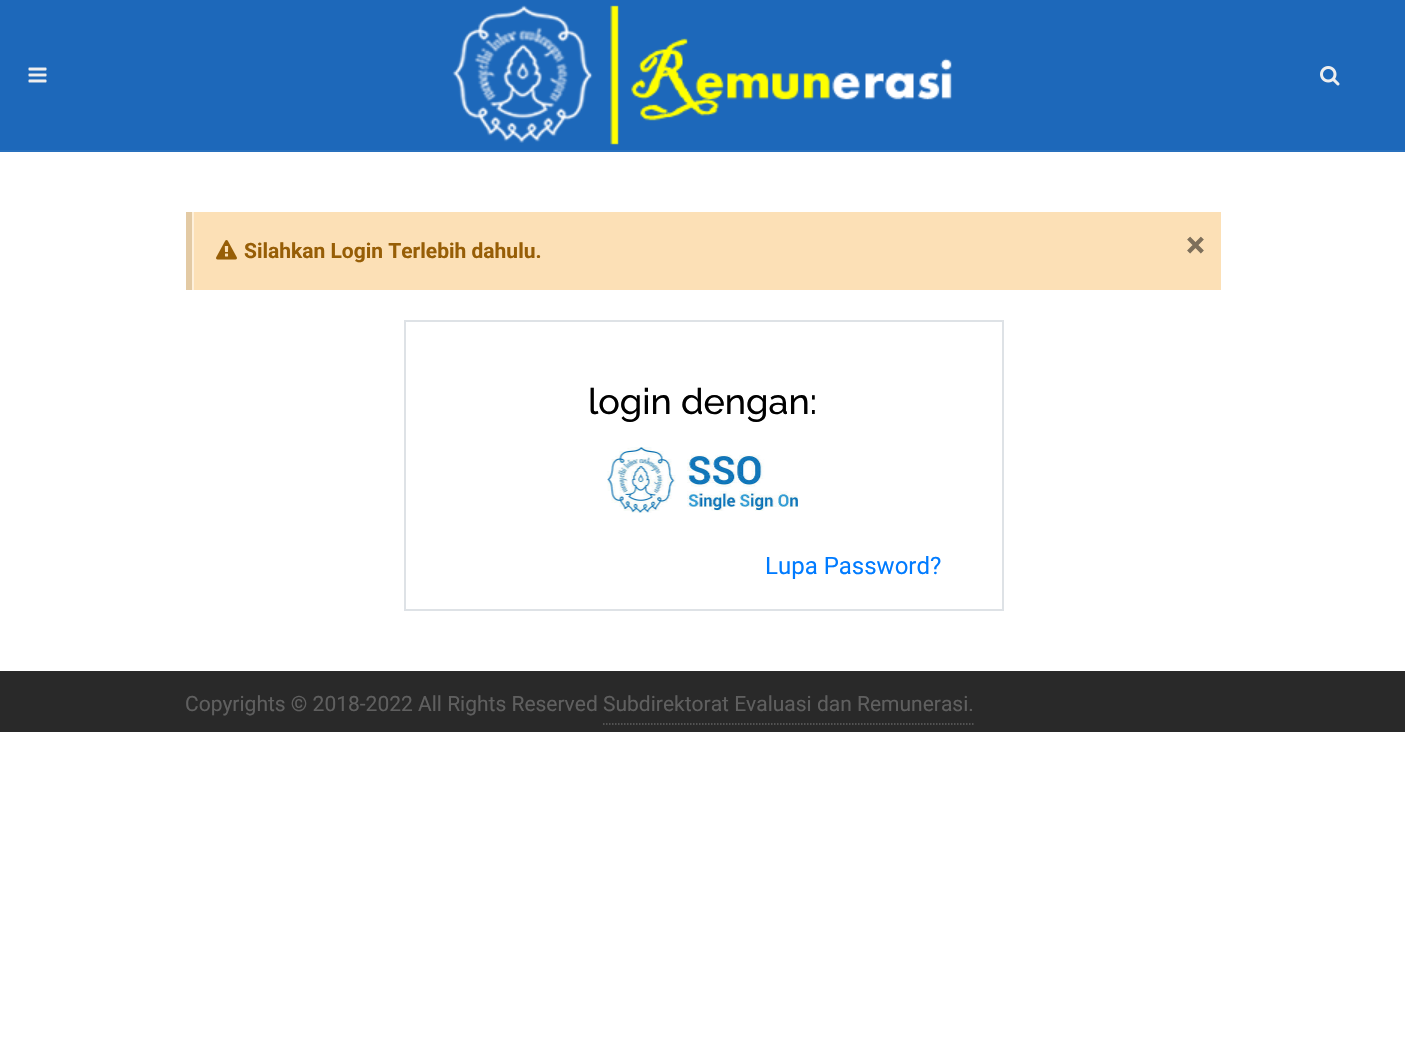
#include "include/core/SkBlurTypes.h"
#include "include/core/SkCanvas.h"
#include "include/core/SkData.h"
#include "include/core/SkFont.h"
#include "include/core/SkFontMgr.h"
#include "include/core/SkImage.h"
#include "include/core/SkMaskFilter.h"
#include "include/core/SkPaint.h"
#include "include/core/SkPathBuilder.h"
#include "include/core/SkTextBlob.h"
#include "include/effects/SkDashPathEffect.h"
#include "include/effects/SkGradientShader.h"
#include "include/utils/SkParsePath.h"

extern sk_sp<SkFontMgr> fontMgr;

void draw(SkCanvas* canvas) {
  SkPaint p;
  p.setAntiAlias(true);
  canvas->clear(SK_ColorWHITE);
  p.setColor(SkColorSetRGB(29, 104, 186));
  canvas->drawRect(SkRect::MakeLTRB(0, 0, 1405, 150), p);
  p.setColor(SkColorSetRGB(40, 112, 189));
  canvas->drawRect(SkRect::MakeLTRB(0, 150, 1405, 152), p);
  canvas->drawImageRect(SkImages::DeferredFromEncodedData(SkData::MakeFromFileName("images/1.png")), SkRect::MakeLTRB(28, 67, 47, 83), SkSamplingOptions());
  canvas->drawImageRect(SkImages::DeferredFromEncodedData(SkData::MakeFromFileName("images/2.png")), SkRect::MakeLTRB(452, 5, 952, 145), SkSamplingOptions());
  canvas->drawImageRect(SkImages::DeferredFromEncodedData(SkData::MakeFromFileName("images/3.png")), SkRect::MakeLTRB(1320, 66, 1340, 86), SkSamplingOptions());
  p.setColor(SkColorSetRGB(252, 224, 182));
  canvas->drawRect(SkRect::MakeLTRB(194, 212, 1221, 290), p);
  p.setColor(SkColorSetRGB(227, 202, 164));
  canvas->drawRect(SkRect::MakeLTRB(186, 212, 192, 290), p);
  p.setColor(SkColorSetRGB(254, 240, 219));
  canvas->drawRect(SkRect::MakeLTRB(192, 212, 194, 290), p);
  canvas->drawImageRect(SkImages::DeferredFromEncodedData(SkData::MakeFromFileName("images/4.png")), SkRect::MakeLTRB(216, 240, 237, 260), SkSamplingOptions());
  p.setStyle(SkPaint::kStroke_Style);
  p.setStrokeWidth(2);
  p.setColor(SkColorSetRGB(222, 226, 230));
  canvas->drawRect(SkRect::MakeLTRB(405, 321, 1003, 610), p);
  canvas->drawImageRect(SkImages::DeferredFromEncodedData(SkData::MakeFromFileName("images/5.png")), SkRect::MakeLTRB(607, 447, 798, 513), SkSamplingOptions());
  p.setStyle(SkPaint::kFill_Style);
  p.setColor(SkColorSetRGB(41, 41, 41));
  canvas->drawRect(SkRect::MakeLTRB(0, 671, 1405, 732), p);
  p.setStyle(SkPaint::kStroke_Style);
  p.setStrokeWidth(1.5f);
  p.setColor(SkColorSetRGB(95, 95, 95));
  p.setPathEffect(SkDashPathEffect::Make({{1.5f, 1.5f}}, 0));
  canvas->drawPath(SkPathBuilder().moveTo(603, 724).lineTo(973.5f, 724).detach(), p);
  p.setPathEffect(nullptr);
  SkFont font1(fontMgr->matchFamilyStyle("Roboto", SkFontStyle::Bold()), 21);
  font1.setSubpixel(true);
  p.setStyle(SkPaint::kFill_Style);
  p.setColor(SkColorSetRGB(151, 94, 6));
  canvas->drawString("Silahkan Login Terlebih dahulu.", 244, 258, font1, p);
  SkFont font2(fontMgr->matchFamilyStyle("Roboto", SkFontStyle::Bold()), 36);
  font2.setSubpixel(true);
  p.setColor(SkColorSetRGB(126, 112, 91));
  canvas->drawString("×", 1186, 257, font2, p);
  SkFont font3(fontMgr->matchFamilyStyle("Raleway", SkFontStyle(500, SkFontStyle::kNormal_Width, SkFontStyle::kUpright_Slant)), 36);
  font3.setSubpixel(true);
  p.setColor(SK_ColorBLACK);
  canvas->drawString("login dengan:", 588, 414, font3, p);
  SkFont font4(fontMgr->matchFamilyStyle("Roboto", SkFontStyle::Normal()), 24);
  font4.setSubpixel(true);
  p.setColor(SkColorSetRGB(0, 123, 255));
  canvas->drawString("Lupa Password?", 765, 574, font4, p);
  SkFont font5(fontMgr->matchFamilyStyle("Roboto", SkFontStyle::Normal()), 21);
  font5.setSubpixel(true);
  p.setColor(SkColorSetRGB(95, 95, 95));
  canvas->drawString("Copyrights © 2018-2022 All Rights Reserved Subdirektorat Evaluasi dan Remunerasi.", 185, 711, font5, p);
}
